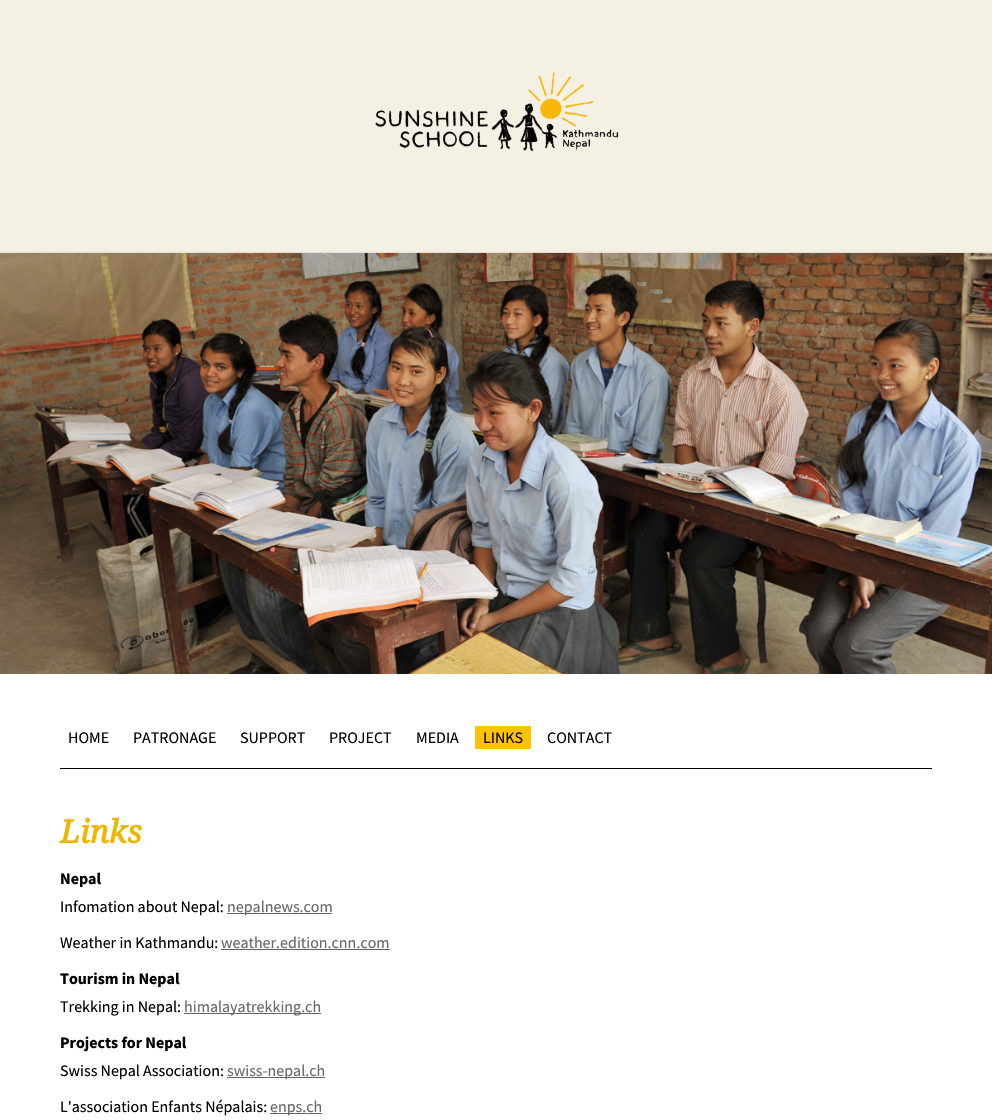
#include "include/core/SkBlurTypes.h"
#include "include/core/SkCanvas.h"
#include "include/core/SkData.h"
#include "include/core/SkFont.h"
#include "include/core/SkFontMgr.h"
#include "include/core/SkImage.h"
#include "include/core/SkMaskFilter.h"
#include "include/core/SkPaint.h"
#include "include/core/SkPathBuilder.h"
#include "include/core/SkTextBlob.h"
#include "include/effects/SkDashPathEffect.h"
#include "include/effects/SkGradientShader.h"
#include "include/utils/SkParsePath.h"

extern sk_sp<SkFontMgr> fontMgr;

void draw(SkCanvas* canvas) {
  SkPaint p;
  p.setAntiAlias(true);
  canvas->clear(SkColorSetRGB(245, 240, 228));
  canvas->drawImageRect(SkImages::DeferredFromEncodedData(SkData::MakeFromFileName("images/1.png")), SkRect::MakeLTRB(375, 72, 619, 152), SkSamplingOptions());
  p.setColor(SkColorSetARGB(51, 0, 0, 0));
  p.setMaskFilter(SkMaskFilter::MakeBlur(kNormal_SkBlurStyle, 1));
  canvas->drawRect(SkRect::MakeLTRB(-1, 253, 991, 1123), p);
  p.setMaskFilter(nullptr);
  p.setColor(SK_ColorWHITE);
  canvas->drawRect(SkRect::MakeLTRB(0, 674, 992, 1120), p);
  canvas->drawImageRect(SkImages::DeferredFromEncodedData(SkData::MakeFromFileName("images/2.png")), SkRect::MakeLTRB(0, 253, 992, 674), SkSamplingOptions());
  p.setColor(SK_ColorBLACK);
  canvas->drawRect(SkRect::MakeLTRB(60, 768, 932, 769), p);
  p.setColor(SkColorSetRGB(255, 194, 0));
  canvas->drawRect(SkRect::MakeLTRB(475, 726, 531, 749), p);
  p.setColor(SkColorSetRGB(102, 102, 102));
  canvas->drawRect(SkRect::MakeLTRB(227, 913, 332, 914), p);
  canvas->drawRect(SkRect::MakeLTRB(221, 949, 390, 950), p);
  canvas->drawRect(SkRect::MakeLTRB(184, 1013, 321, 1014), p);
  canvas->drawRect(SkRect::MakeLTRB(227, 1077, 325, 1078), p);
  canvas->drawRect(SkRect::MakeLTRB(270, 1113, 322, 1114), p);
  SkFont font1(fontMgr->matchFamilyStyle("Source Sans Pro", SkFontStyle::Normal()), 16);
  font1.setSubpixel(true);
  p.setColor(SK_ColorBLACK);
  canvas->drawString("HOME", 68, 743, font1, p);
  canvas->drawString("PATRONAGE", 133, 743, font1, p);
  canvas->drawString("SUPPORT", 240, 743, font1, p);
  canvas->drawString("PROJECT", 329, 743, font1, p);
  canvas->drawString("MEDIA", 416, 743, font1, p);
  canvas->drawString("LINKS", 483, 743, font1, p);
  canvas->drawString("CONTACT", 547, 743, font1, p);
  SkFont font2(fontMgr->matchFamilyStyle("Noto Serif", SkFontStyle::BoldItalic()), 32);
  font2.setSubpixel(true);
  p.setColor(SkColorSetRGB(239, 182, 0));
  canvas->drawString("Links", 60, 843, font2, p);
  SkFont font3(fontMgr->matchFamilyStyle("Source Sans Pro", SkFontStyle::Bold()), 16);
  font3.setSubpixel(true);
  p.setColor(SK_ColorBLACK);
  canvas->drawString("Nepal", 60, 884, font3, p);
  canvas->drawString("Infomation about Nepal:", 60, 912, font1, p);
  p.setColor(SkColorSetRGB(102, 102, 102));
  canvas->drawString("nepalnews.com", 227, 912, font1, p);
  p.setColor(SK_ColorBLACK);
  canvas->drawString("Weather in Kathmandu:", 60, 948, font1, p);
  p.setColor(SkColorSetRGB(102, 102, 102));
  canvas->drawString("weather.edition.cnn.com", 221, 948, font1, p);
  p.setColor(SK_ColorBLACK);
  canvas->drawString("Tourism in Nepal", 60, 984, font3, p);
  canvas->drawString("Trekking in Nepal:", 60, 1012, font1, p);
  p.setColor(SkColorSetRGB(102, 102, 102));
  canvas->drawString("himalayatrekking.ch", 184, 1012, font1, p);
  p.setColor(SK_ColorBLACK);
  canvas->drawString("Projects for Nepal", 60, 1048, font3, p);
  canvas->drawString("Swiss Nepal Association:", 60, 1076, font1, p);
  p.setColor(SkColorSetRGB(102, 102, 102));
  canvas->drawString("swiss-nepal.ch", 227, 1076, font1, p);
  p.setColor(SK_ColorBLACK);
  canvas->drawString("L'association Enfants Népalais:", 60, 1112, font1, p);
  p.setColor(SkColorSetRGB(102, 102, 102));
  canvas->drawString("enps.ch", 270, 1112, font1, p);
}
